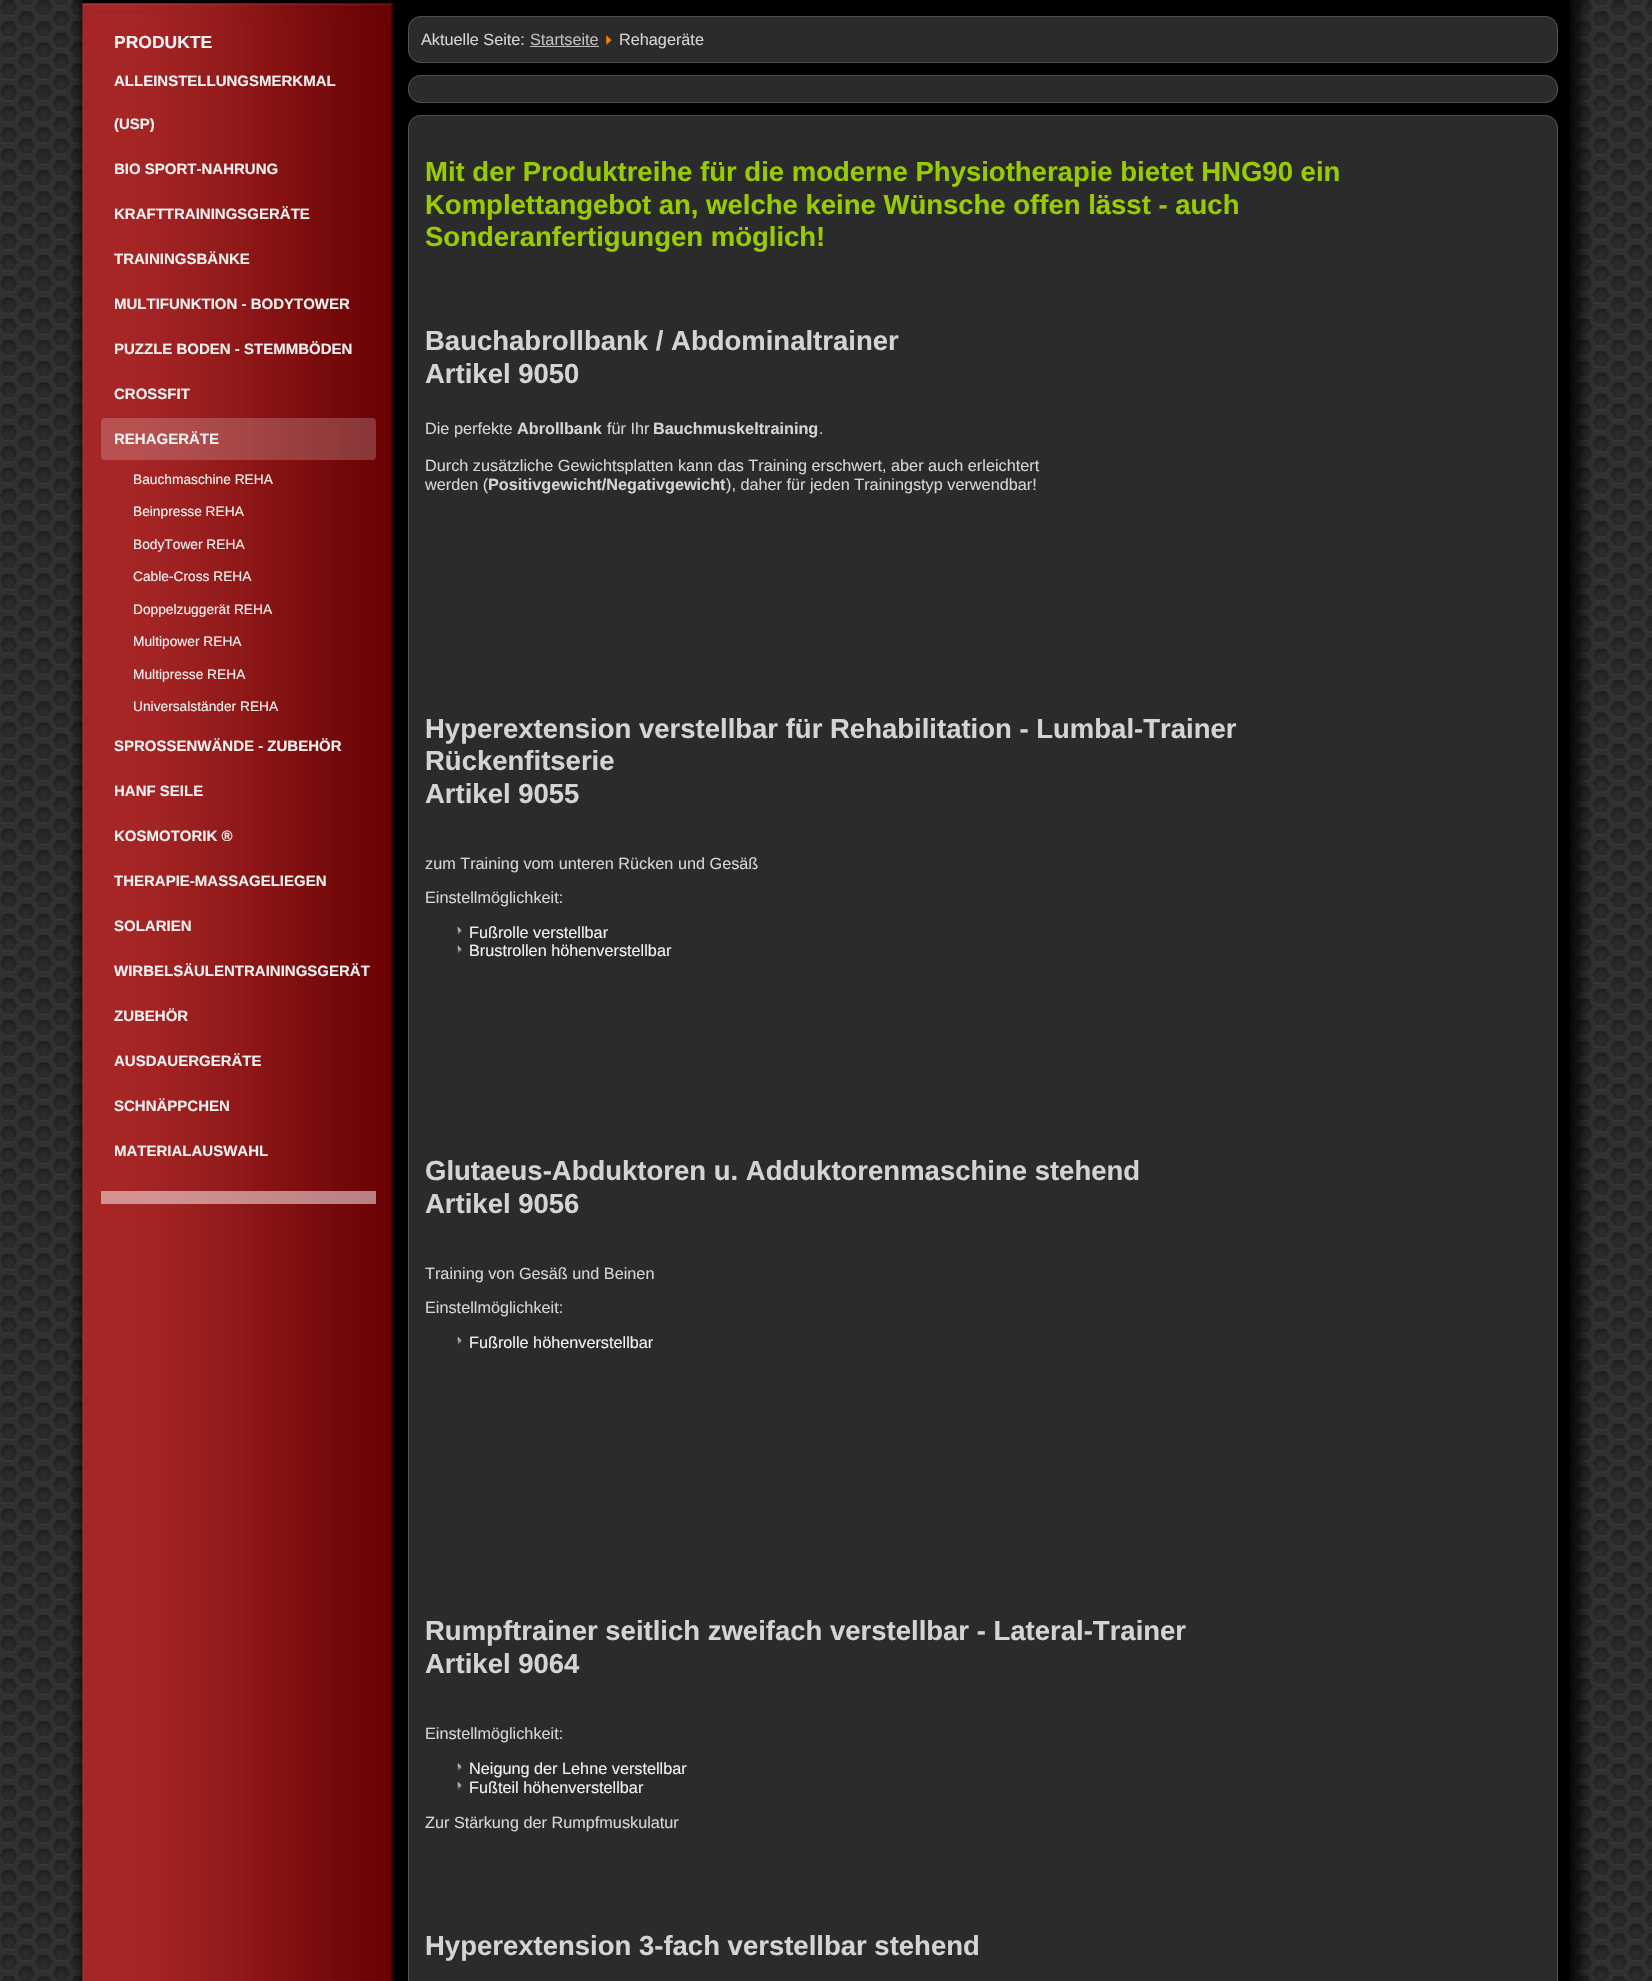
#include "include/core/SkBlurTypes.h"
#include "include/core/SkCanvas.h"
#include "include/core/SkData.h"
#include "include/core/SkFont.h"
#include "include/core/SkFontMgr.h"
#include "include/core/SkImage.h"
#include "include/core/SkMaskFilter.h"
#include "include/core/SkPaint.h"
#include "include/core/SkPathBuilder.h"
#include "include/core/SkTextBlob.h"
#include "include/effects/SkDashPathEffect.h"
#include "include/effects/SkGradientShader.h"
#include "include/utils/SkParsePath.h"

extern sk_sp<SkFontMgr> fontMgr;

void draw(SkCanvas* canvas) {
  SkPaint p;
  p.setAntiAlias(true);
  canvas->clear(SK_ColorWHITE);
  canvas->drawImageRect(SkImages::DeferredFromEncodedData(SkData::MakeFromFileName("images/1.png")), SkRect::MakeLTRB(0, 0, 1652, 1981), SkSamplingOptions());
  p.setColor(SkColorSetARGB(209, 0, 0, 0));
  p.setMaskFilter(SkMaskFilter::MakeBlur(kNormal_SkBlurStyle, 6));
  canvas->drawRect(SkRect::MakeLTRB(81, -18, 1581, 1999), p);
  p.setMaskFilter(nullptr);
  p.setColor(SK_ColorBLACK);
  canvas->drawRect(SkRect::MakeLTRB(83, 0, 1570, 1981), p);
  canvas->drawImageRect(SkImages::DeferredFromEncodedData(SkData::MakeFromFileName("images/2.png")), SkRect::MakeLTRB(82, 3, 395, 1981), SkSamplingOptions());
  p.setColor(SkColorSetARGB(51, 255, 255, 255));
  canvas->drawRoundRect(SkRect::MakeLTRB(101, 418, 376, 460), 4, 4, p);
  p.setColor(SkColorSetARGB(128, 255, 255, 255));
  canvas->drawRect(SkRect::MakeLTRB(101, 1191, 376, 1204), p);
  p.setColor(SkColorSetRGB(43, 43, 43));
  canvas->drawRoundRect(SkRect::MakeLTRB(408, 16, 1558, 63), 13, 13, p);
  p.setStyle(SkPaint::kStroke_Style);
  p.setStrokeWidth(1);
  p.setColor(SkColorSetARGB(77, 166, 166, 166));
  canvas->drawRoundRect(SkRect::MakeLTRB(408.5f, 16.5f, 1557.5f, 62.5f), 12.5f, 12.5f, p);
  p.setStyle(SkPaint::kFill_Style);
  p.setColor(SkColorSetRGB(191, 191, 191));
  canvas->drawRect(SkRect::MakeLTRB(530, 46, 599, 47), p);
  canvas->drawImageRect(SkImages::DeferredFromEncodedData(SkData::MakeFromFileName("images/3.png")), SkRect::MakeLTRB(606, 35, 612, 45), SkSamplingOptions());
  p.setColor(SkColorSetRGB(43, 43, 43));
  canvas->drawRoundRect(SkRect::MakeLTRB(408, 75, 1558, 103), 13, 13, p);
  p.setStyle(SkPaint::kStroke_Style);
  p.setColor(SkColorSetARGB(77, 166, 166, 166));
  canvas->drawRoundRect(SkRect::MakeLTRB(408.5f, 75.5f, 1557.5f, 102.5f), 12.5f, 12.5f, p);
  p.setStyle(SkPaint::kFill_Style);
  p.setColor(SkColorSetRGB(43, 43, 43));
  canvas->drawRoundRect(SkRect::MakeLTRB(408, 115, 1558, 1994), 13, 13, p);
  p.setStyle(SkPaint::kStroke_Style);
  p.setColor(SkColorSetARGB(77, 166, 166, 166));
  canvas->drawRoundRect(SkRect::MakeLTRB(408.5f, 115.5f, 1557.5f, 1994.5f), 12.5f, 12.5f, p);
  canvas->drawImageRect(SkImages::DeferredFromEncodedData(SkData::MakeFromFileName("images/4.png")), SkRect::MakeLTRB(457, 927, 462, 935), SkSamplingOptions());
  canvas->drawImageRect(SkImages::DeferredFromEncodedData(SkData::MakeFromFileName("images/5.png")), SkRect::MakeLTRB(457, 945, 462, 954), SkSamplingOptions());
  canvas->drawImageRect(SkImages::DeferredFromEncodedData(SkData::MakeFromFileName("images/4.png")), SkRect::MakeLTRB(457, 1337, 462, 1345), SkSamplingOptions());
  canvas->drawImageRect(SkImages::DeferredFromEncodedData(SkData::MakeFromFileName("images/6.png")), SkRect::MakeLTRB(457, 1763, 462, 1771), SkSamplingOptions());
  canvas->drawImageRect(SkImages::DeferredFromEncodedData(SkData::MakeFromFileName("images/4.png")), SkRect::MakeLTRB(457, 1782, 462, 1790), SkSamplingOptions());
  SkFont font1(fontMgr->matchFamilyStyle("Liberation Sans", SkFontStyle::Bold()), 17.5f);
  font1.setSubpixel(true);
  p.setStyle(SkPaint::kFill_Style);
  p.setColor(SkColorSetRGB(240, 240, 240));
  canvas->drawString("PRODUKTE", 114, 48, font1, p);
  SkFont font2(fontMgr->matchFamilyStyle("Liberation Sans", SkFontStyle::Bold()), 15);
  font2.setSubpixel(true);
  canvas->drawString("ALLEINSTELLUNGSMERKMAL", 114, 86, font2, p);
  canvas->drawString("(USP)", 114, 129, font2, p);
  canvas->drawString("BIO SPORT-NAHRUNG", 114, 174, font2, p);
  canvas->drawString("KRAFTTRAININGSGERÄTE", 114, 219, font2, p);
  canvas->drawString("TRAININGSBÄNKE", 114, 264, font2, p);
  canvas->drawString("MULTIFUNKTION - BODYTOWER", 114, 309, font2, p);
  canvas->drawString("PUZZLE BODEN - STEMMBÖDEN", 114, 354, font2, p);
  canvas->drawString("CROSSFIT", 114, 399, font2, p);
  canvas->drawString("REHAGERÄTE", 114, 444, font2, p);
  SkFont font3(fontMgr->matchFamilyStyle("Liberation Sans", SkFontStyle::Normal()), 13.75f);
  font3.setSubpixel(true);
  canvas->drawString("Bauchmaschine REHA", 133, 484, font3, p);
  canvas->drawString("Beinpresse REHA", 133, 516, font3, p);
  canvas->drawString("BodyTower REHA", 133, 549, font3, p);
  canvas->drawString("Cable-Cross REHA", 133, 581, font3, p);
  canvas->drawString("Doppelzuggerät REHA", 133, 614, font3, p);
  canvas->drawString("Multipower REHA", 133, 646, font3, p);
  canvas->drawString("Multipresse REHA", 133, 679, font3, p);
  canvas->drawString("Universalständer REHA", 133, 711, font3, p);
  canvas->drawString("SPROSSENWÄNDE - ZUBEHÖR", 114, 751, font2, p);
  canvas->drawString("HANF SEILE", 114, 796, font2, p);
  canvas->drawString("KOSMOTORIK ®", 114, 841, font2, p);
  canvas->drawString("THERAPIE-MASSAGELIEGEN", 114, 886, font2, p);
  canvas->drawString("SOLARIEN", 114, 931, font2, p);
  canvas->drawString("WIRBELSÄULENTRAININGSGERÄT", 114, 976, font2, p);
  canvas->drawString("ZUBEHÖR", 114, 1021, font2, p);
  canvas->drawString("AUSDAUERGERÄTE", 114, 1066, font2, p);
  canvas->drawString("SCHNÄPPCHEN", 114, 1111, font2, p);
  canvas->drawString("MATERIALAUSWAHL", 114, 1156, font2, p);
  SkFont font4(fontMgr->matchFamilyStyle("Liberation Sans", SkFontStyle::Normal()), 16.25f);
  font4.setSubpixel(true);
  p.setColor(SkColorSetRGB(212, 212, 212));
  canvas->drawString("Aktuelle Seite:", 421, 45, font4, p);
  p.setColor(SkColorSetRGB(191, 191, 191));
  canvas->drawString("Startseite", 530, 45, font4, p);
  p.setColor(SkColorSetRGB(212, 212, 212));
  canvas->drawString("Rehageräte", 619, 45, font4, p);
  SkFont font5(fontMgr->matchFamilyStyle("Liberation Sans", SkFontStyle::Bold()), 27.5f);
  font5.setSubpixel(true);
  p.setColor(SkColorSetRGB(153, 204, 0));
  canvas->drawString("Mit der Produktreihe für die moderne Physiotherapie bietet HNG90 ein", 425, 181, font5, p);
  canvas->drawString("Komplettangebot an, welche keine Wünsche offen lässt - auch", 425, 214, font5, p);
  canvas->drawString("Sonderanfertigungen möglich!", 425, 246, font5, p);
  p.setColor(SkColorSetRGB(212, 212, 212));
  canvas->drawString("Bauchabrollbank / Abdominaltrainer", 425, 350, font5, p);
  canvas->drawString("Artikel 9050", 425, 383, font5, p);
  canvas->drawString("Die perfekte", 425, 434, font4, p);
  SkFont font6(fontMgr->matchFamilyStyle("Liberation Sans", SkFontStyle::Bold()), 16.25f);
  font6.setSubpixel(true);
  canvas->drawString("Abrollbank", 517, 434, font6, p);
  canvas->drawString("für Ihr", 607, 434, font4, p);
  canvas->drawString("Bauchmuskeltraining", 653, 434, font6, p);
  canvas->drawString(".", 819, 434, font4, p);
  canvas->drawString("Durch zusätzliche Gewichtsplatten kann das Training erschwert, aber auch erleichtert", 425, 471, font4, p);
  canvas->drawString("werden (", 425, 490, font4, p);
  canvas->drawString("Positivgewicht/Negativgewicht", 488, 490, font6, p);
  canvas->drawString("), daher für jeden Trainingstyp verwendbar!", 726, 490, font4, p);
  canvas->drawString("Hyperextension verstellbar für Rehabilitation - Lumbal-Trainer", 425, 738, font5, p);
  canvas->drawString("Rückenfitserie", 425, 770, font5, p);
  canvas->drawString("Artikel 9055", 425, 803, font5, p);
  canvas->drawString("zum Training vom unteren Rücken und Gesäß", 425, 869, font4, p);
  canvas->drawString("Einstellmöglichkeit:", 425, 903, font4, p);
  p.setColor(SkColorSetRGB(240, 240, 240));
  canvas->drawString("Fußrolle verstellbar", 469, 938, font4, p);
  canvas->drawString("Brustrollen höhenverstellbar", 469, 956, font4, p);
  p.setColor(SkColorSetRGB(212, 212, 212));
  canvas->drawString("Glutaeus-Abduktoren u. Adduktorenmaschine stehend", 425, 1180, font5, p);
  canvas->drawString("Artikel 9056", 425, 1213, font5, p);
  canvas->drawString("Training von Gesäß und Beinen", 425, 1279, font4, p);
  canvas->drawString("Einstellmöglichkeit:", 425, 1313, font4, p);
  p.setColor(SkColorSetRGB(240, 240, 240));
  canvas->drawString("Fußrolle höhenverstellbar", 469, 1348, font4, p);
  p.setColor(SkColorSetRGB(212, 212, 212));
  canvas->drawString("Rumpftrainer seitlich zweifach verstellbar - Lateral-Trainer", 425, 1640, font5, p);
  canvas->drawString("Artikel 9064", 425, 1673, font5, p);
  canvas->drawString("Einstellmöglichkeit:", 425, 1739, font4, p);
  p.setColor(SkColorSetRGB(240, 240, 240));
  canvas->drawString("Neigung der Lehne verstellbar", 469, 1774, font4, p);
  canvas->drawString("Fußteil höhenverstellbar", 469, 1793, font4, p);
  p.setColor(SkColorSetRGB(212, 212, 212));
  canvas->drawString("Zur Stärkung der Rumpfmuskulatur", 425, 1828, font4, p);
  canvas->drawString("Hyperextension 3-fach verstellbar stehend", 425, 1955, font5, p);
}
